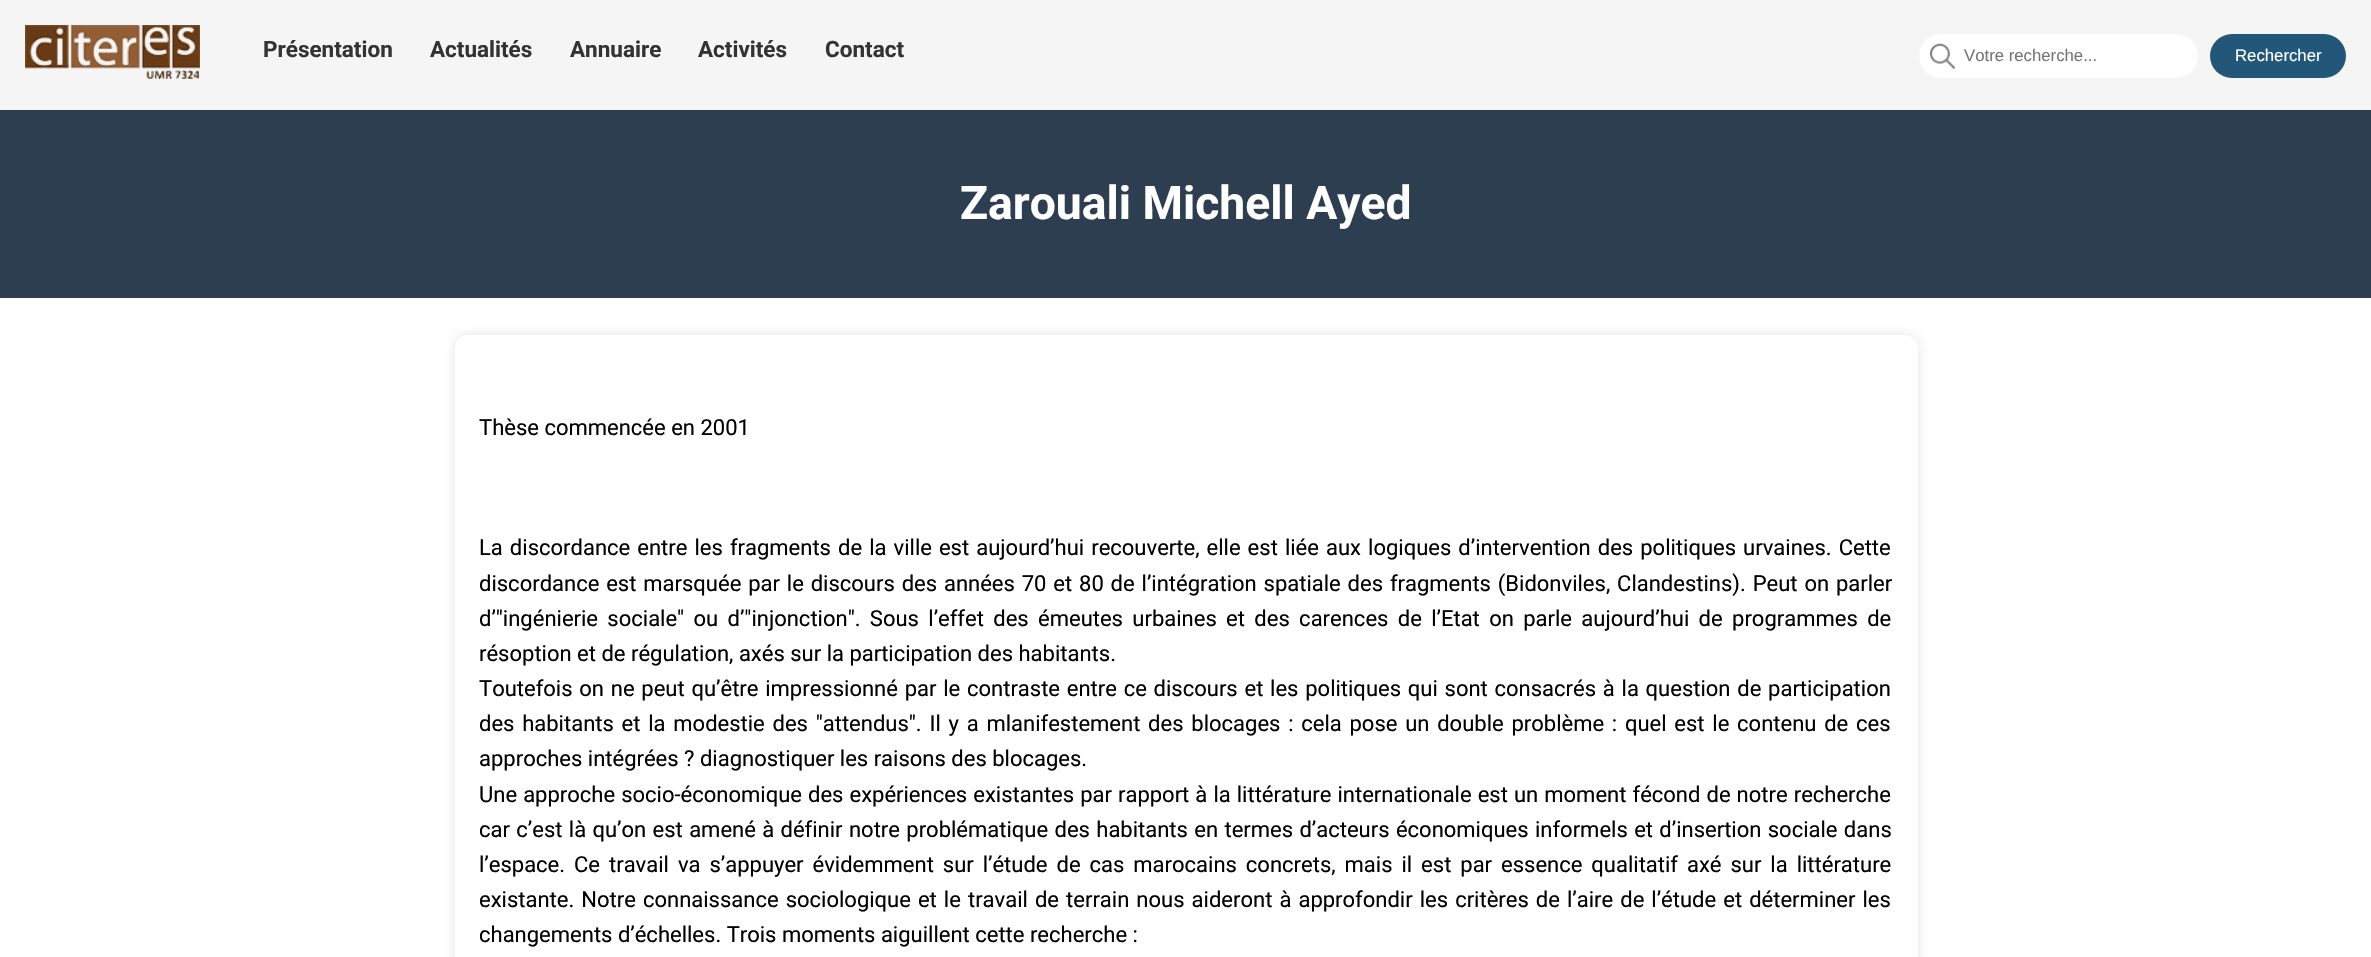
#include "include/core/SkBlurTypes.h"
#include "include/core/SkCanvas.h"
#include "include/core/SkData.h"
#include "include/core/SkFont.h"
#include "include/core/SkFontMgr.h"
#include "include/core/SkImage.h"
#include "include/core/SkMaskFilter.h"
#include "include/core/SkPaint.h"
#include "include/core/SkPathBuilder.h"
#include "include/core/SkTextBlob.h"
#include "include/effects/SkDashPathEffect.h"
#include "include/effects/SkGradientShader.h"
#include "include/utils/SkParsePath.h"

extern sk_sp<SkFontMgr> fontMgr;

void draw(SkCanvas* canvas) {
  SkPaint p;
  p.setAntiAlias(true);
  auto spacedText = [&](const char* s, float x, float y, const SkFont& font, const SkPaint& ink, float letter, float word) {
    std::vector<SkGlyphID> glyphs(font.countText(s, strlen(s), SkTextEncoding::kUTF8));
    std::vector<float> xs(glyphs.size());
    font.textToGlyphs(s, strlen(s), SkTextEncoding::kUTF8, glyphs);
    font.getXPos(glyphs, xs, x);
    float extra = 0;
    for (size_t i = 0; i < glyphs.size(); i++) {
      xs[i] += extra;
      extra += letter + word * (glyphs[i] == font.unicharToGlyph(' '));
    }
    canvas->drawTextBlob(SkTextBlob::MakeFromPosHGlyphs(glyphs, xs, y, font), 0, 0, ink);
  };
  canvas->clear(SK_ColorWHITE);
  p.setColor(SkColorSetRGB(245, 245, 245));
  canvas->drawRect(SkRect::MakeLTRB(0, 0, 2371, 110), p);
  canvas->drawImageRect(SkImages::DeferredFromEncodedData(SkData::MakeFromFileName("images/1.png")), SkRect::MakeLTRB(25, 25, 200, 79), SkSamplingOptions());
  p.setColor(SK_ColorWHITE);
  canvas->drawRoundRect(SkRect::MakeLTRB(1919, 34, 2198, 78), 22, 22, p);
  canvas->drawImageRect(SkImages::DeferredFromEncodedData(SkData::MakeFromFileName("images/2.png")), SkRect::MakeLTRB(1930, 43, 1955, 69), SkSamplingOptions());
  p.setColor(SkColorSetRGB(34, 87, 122));
  canvas->drawRoundRect(SkRect::MakeLTRB(2210, 34, 2346, 78), 22, 22, p);
  p.setColor(SkColorSetRGB(44, 62, 80));
  canvas->drawRect(SkRect::MakeLTRB(0, 110, 2371, 298), p);
  p.setColor(SkColorSetARGB(26, 0, 0, 0));
  p.setMaskFilter(SkMaskFilter::MakeBlur(kNormal_SkBlurStyle, 6));
  canvas->drawRoundRect(SkRect::MakeLTRB(455, 335, 1918, 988), 13, 13, p);
  p.setMaskFilter(nullptr);
  p.setColor(SK_ColorWHITE);
  canvas->drawRoundRect(SkRect::MakeLTRB(455, 335, 1918, 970), 13, 13, p);
  SkFont font1(fontMgr->matchFamilyStyle("Roboto", SkFontStyle::Bold()), 22.5f);
  font1.setSubpixel(true);
  p.setColor(SkColorSetRGB(51, 51, 51));
  canvas->drawString("Présentation", 263, 57, font1, p);
  canvas->drawString("Actualités", 430, 57, font1, p);
  canvas->drawString("Annuaire", 570, 57, font1, p);
  canvas->drawString("Activités", 698, 57, font1, p);
  canvas->drawString("Contact", 825, 57, font1, p);
  SkFont font2(fontMgr->matchFamilyStyle("Liberation Sans", SkFontStyle::Normal()), 16.75f);
  font2.setSubpixel(true);
  p.setColor(SkColorSetRGB(117, 117, 117));
  canvas->drawString("Votre recherche...", 1964, 61, font2, p);
  p.setColor(SK_ColorWHITE);
  canvas->drawString("Rechercher", 2235, 61, font2, p);
  SkFont font3(fontMgr->matchFamilyStyle("Roboto", SkFontStyle::Bold()), 46.25f);
  font3.setSubpixel(true);
  canvas->drawString("Zarouali Michell Ayed", 960, 219, font3, p);
  SkFont font4(fontMgr->matchFamilyStyle("Roboto", SkFontStyle::Normal()), 22);
  font4.setSubpixel(true);
  p.setColor(SK_ColorBLACK);
  canvas->drawString("Thèse commencée en 2001", 479, 435, font4, p);
  spacedText("La discordance entre les fragments de la ville est aujourd’hui recouverte, elle est liée aux logiques d’intervention des politiques urvaines. Cette", 479, 555, font4, p, 0, 1.6f);
  spacedText("discordance est marsquée par le discours des années 70 et 80 de l’intégration spatiale des fragments (Bidonviles, Clandestins). Peut on parler", 479, 591, font4, p, 0, 1.4f);
  spacedText("d’\"ingénierie sociale\" ou d’\"injonction\". Sous l’effet des émeutes urbaines et des carences de l’Etat on parle aujourd’hui de programmes de", 479, 626, font4, p, 0, 3.9f);
  canvas->drawString("résoption et de régulation, axés sur la participation des habitants.", 479, 661, font4, p);
  spacedText("Toutefois on ne peut qu’être impressionné par le contraste entre ce discours et les politiques qui sont consacrés à la question de participation", 479, 696, font4, p, 0, 1.3f);
  spacedText("des habitants et la modestie des \"attendus\". Il y a mlanifestement des blocages : cela pose un double problème : quel est le contenu de ces", 479, 731, font4, p, 0, 2.3f);
  canvas->drawString("approches intégrées ? diagnostiquer les raisons des blocages.", 479, 766, font4, p);
  spacedText("Une approche socio-économique des expériences existantes par rapport à la littérature internationale est un moment fécond de notre recherche", 479, 802, font4, p, 0, 0.6f);
  spacedText("car c’est là qu’on est amené à définir notre problématique des habitants en termes d’acteurs économiques informels et d’insertion sociale dans", 479, 837, font4, p, 0, 0.9f);
  spacedText("l’espace. Ce travail va s’appuyer évidemment sur l’étude de cas marocains concrets, mais il est par essence qualitatif axé sur la littérature", 479, 872, font4, p, 0, 3.5f);
  spacedText("existante. Notre connaissance sociologique et le travail de terrain nous aideront à approfondir les critères de l’aire de l’étude et déterminer les", 479, 907, font4, p, 0, 1.6f);
  canvas->drawString("changements d’échelles. Trois moments aiguillent cette recherche :", 479, 942, font4, p);
}
